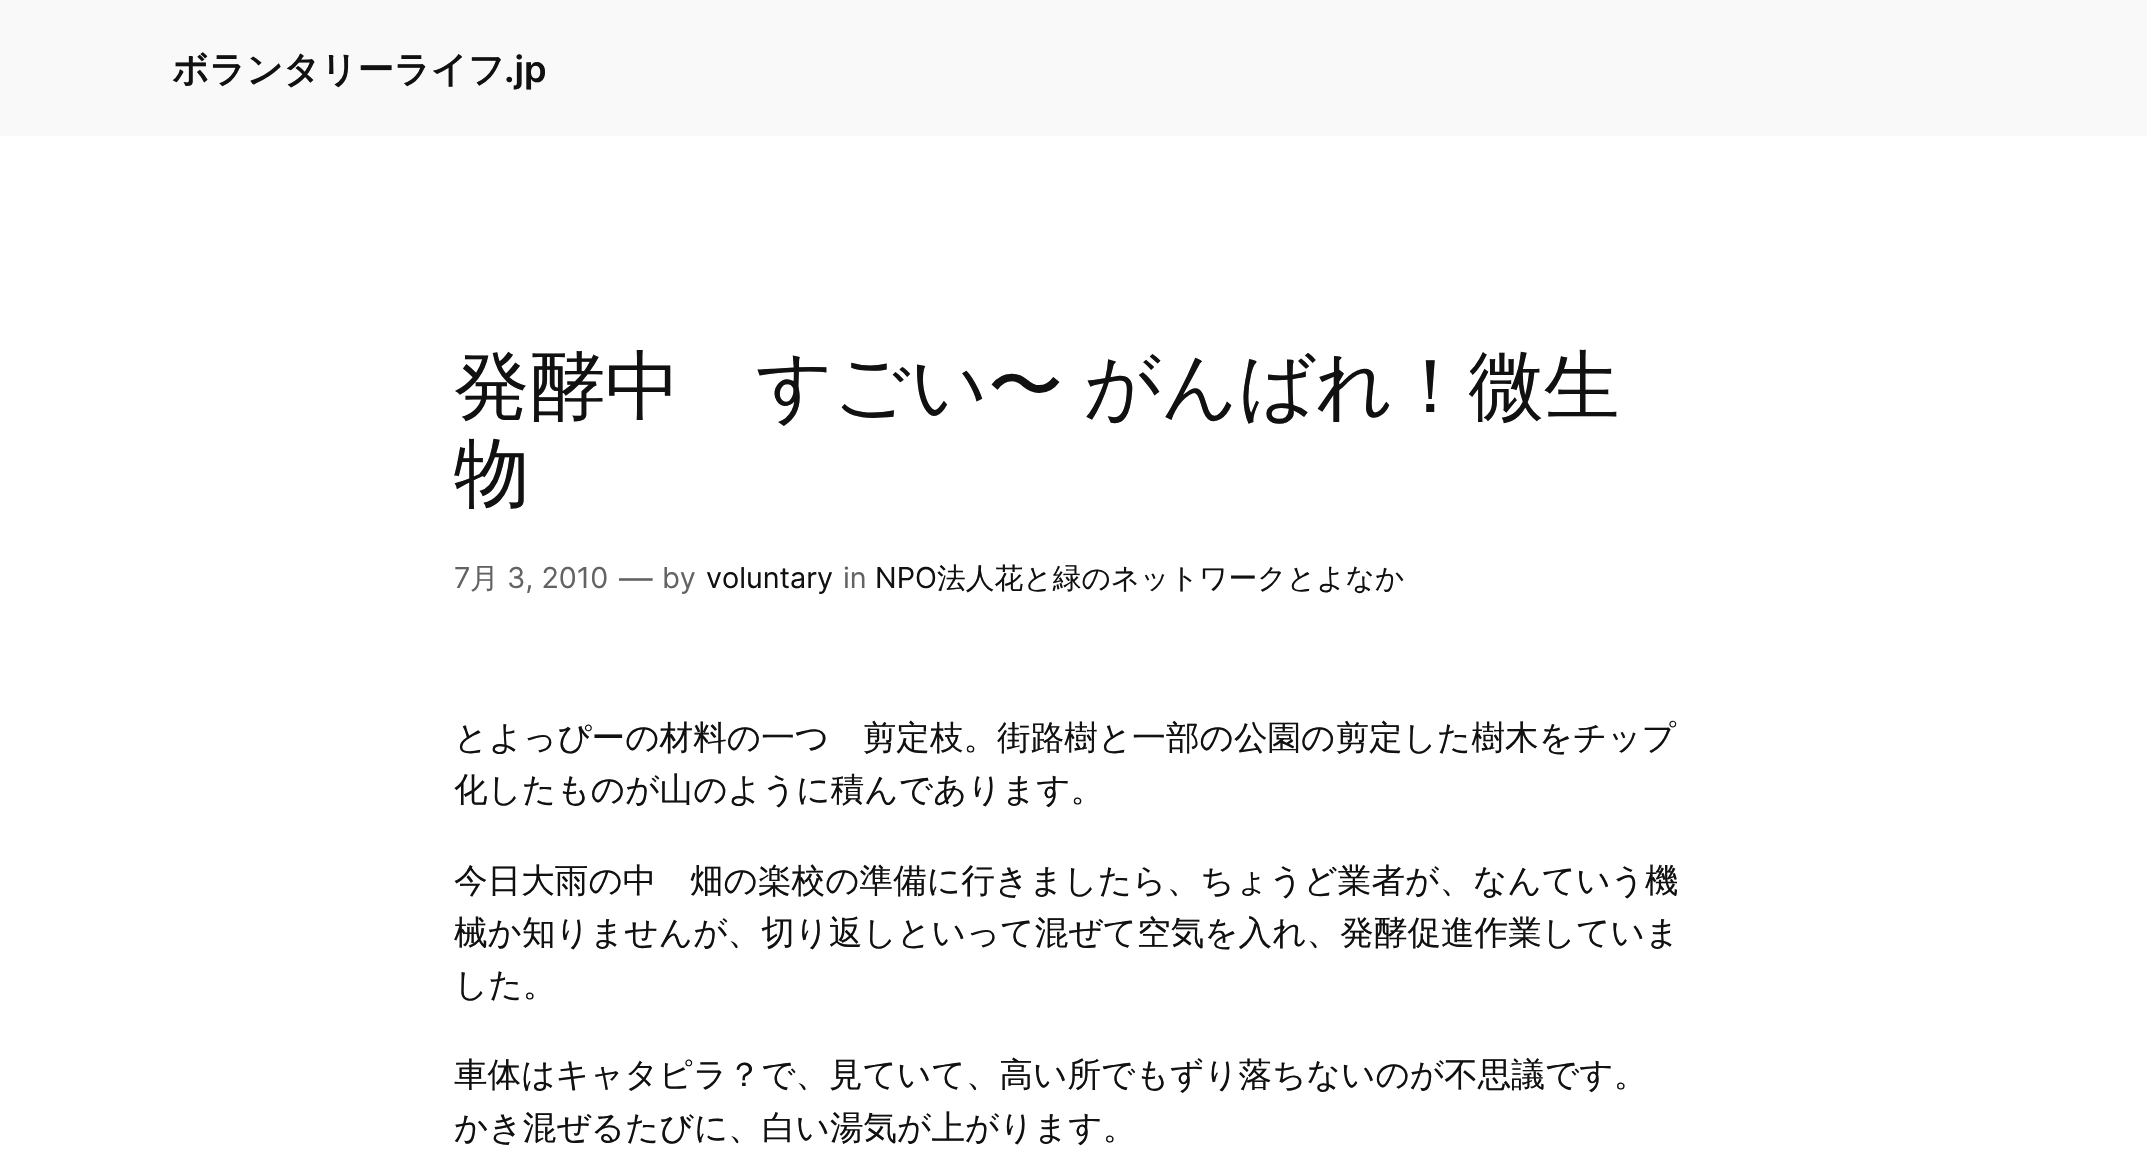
#include "include/core/SkBlurTypes.h"
#include "include/core/SkCanvas.h"
#include "include/core/SkData.h"
#include "include/core/SkFont.h"
#include "include/core/SkFontMgr.h"
#include "include/core/SkImage.h"
#include "include/core/SkMaskFilter.h"
#include "include/core/SkPaint.h"
#include "include/core/SkPathBuilder.h"
#include "include/core/SkTextBlob.h"
#include "include/effects/SkDashPathEffect.h"
#include "include/effects/SkGradientShader.h"
#include "include/utils/SkParsePath.h"

extern sk_sp<SkFontMgr> fontMgr;

void draw(SkCanvas* canvas) {
  SkPaint p;
  p.setAntiAlias(true);
  auto spacedText = [&](const char* s, float x, float y, const SkFont& font, const SkPaint& ink, float letter, float word) {
    std::vector<SkGlyphID> glyphs(font.countText(s, strlen(s), SkTextEncoding::kUTF8));
    std::vector<float> xs(glyphs.size());
    font.textToGlyphs(s, strlen(s), SkTextEncoding::kUTF8, glyphs);
    font.getXPos(glyphs, xs, x);
    float extra = 0;
    for (size_t i = 0; i < glyphs.size(); i++) {
      xs[i] += extra;
      extra += letter + word * (glyphs[i] == font.unicharToGlyph(' '));
    }
    canvas->drawTextBlob(SkTextBlob::MakeFromPosHGlyphs(glyphs, xs, y, font), 0, 0, ink);
  };
  canvas->clear(SK_ColorWHITE);
  p.setColor(SkColorSetRGB(249, 249, 249));
  canvas->drawRect(SkRect::MakeLTRB(0, 0, 2147, 136), p);
  SkFont font1(fontMgr->matchFamilyStyle("WenQuanYi Zen Hei", SkFontStyle::Bold()), 36.25f);
  font1.setSubpixel(true);
  p.setColor(SkColorSetRGB(17, 17, 17));
  canvas->drawString("ボランタリーライフ", 172, 82, font1, p);
  SkFont font2(fontMgr->matchFamilyStyle("Inter", SkFontStyle(600, SkFontStyle::kNormal_Width, SkFontStyle::kUpright_Slant)), 36.25f);
  font2.setSubpixel(true);
  canvas->drawString(".jp", 504, 82, font2, p);
  SkFont font3(fontMgr->matchFamilyStyle("WenQuanYi Zen Hei", SkFontStyle(500, SkFontStyle::kNormal_Width, SkFontStyle::kUpright_Slant)), 75.5f);
  font3.setSubpixel(true);
  spacedText("発酵中　すごい〜 がんばれ！微生", 454, 412, font3, p, 0, -2);
  canvas->drawString("物", 454, 499, font3, p);
  SkFont font4(fontMgr->matchFamilyStyle("Inter", SkFontStyle::Normal()), 28.75f);
  font4.setSubpixel(true);
  p.setColor(SkColorSetRGB(99, 99, 99));
  canvas->drawString("7", 454, 588, font4, p);
  SkFont font5(fontMgr->matchFamilyStyle("WenQuanYi Zen Hei", SkFontStyle(500, SkFontStyle::kNormal_Width, SkFontStyle::kUpright_Slant)), 28.75f);
  font5.setSubpixel(true);
  canvas->drawString("月", 470, 588, font5, p);
  canvas->drawString("3, 2010", 507, 588, font4, p);
  SkFont font6(fontMgr->matchFamilyStyle("Inter", SkFontStyle::Normal()), 33.6f);
  font6.setSubpixel(true);
  canvas->drawString("—", 619, 590, font6, p);
  canvas->drawString("by", 662, 588, font4, p);
  p.setColor(SkColorSetRGB(17, 17, 17));
  canvas->drawString("voluntary", 706, 588, font4, p);
  p.setColor(SkColorSetRGB(99, 99, 99));
  canvas->drawString("in", 843, 588, font4, p);
  p.setColor(SkColorSetRGB(17, 17, 17));
  canvas->drawString("NPO", 875, 588, font4, p);
  canvas->drawString("法人花と緑のネットワークとよなか", 937, 588, font5, p);
  SkFont font7(fontMgr->matchFamilyStyle("WenQuanYi Zen Hei", SkFontStyle(500, SkFontStyle::kNormal_Width, SkFontStyle::kUpright_Slant)), 33.6f);
  font7.setSubpixel(true);
  canvas->drawString("とよっぴーの材料の一つ　剪定枝。街路樹と一部の公園の剪定した樹木をチップ", 454, 749, font7, p);
  canvas->drawString("化したものが山のように積んであります。", 454, 801, font7, p);
  canvas->drawString("今日大雨の中　畑の楽校の準備に行きましたら、ちょうど業者が、なんていう機", 454, 892, font7, p);
  canvas->drawString("械か知りませんが、切り返しといって混ぜて空気を入れ、発酵促進作業していま", 454, 944, font7, p);
  canvas->drawString("した。", 454, 996, font7, p);
  canvas->drawString("車体はキャタピラ？で、見ていて、高い所でもずり落ちないのが不思議です。", 454, 1086, font7, p);
  canvas->drawString("かき混ぜるたびに、白い湯気が上がります。", 454, 1139, font7, p);
}
